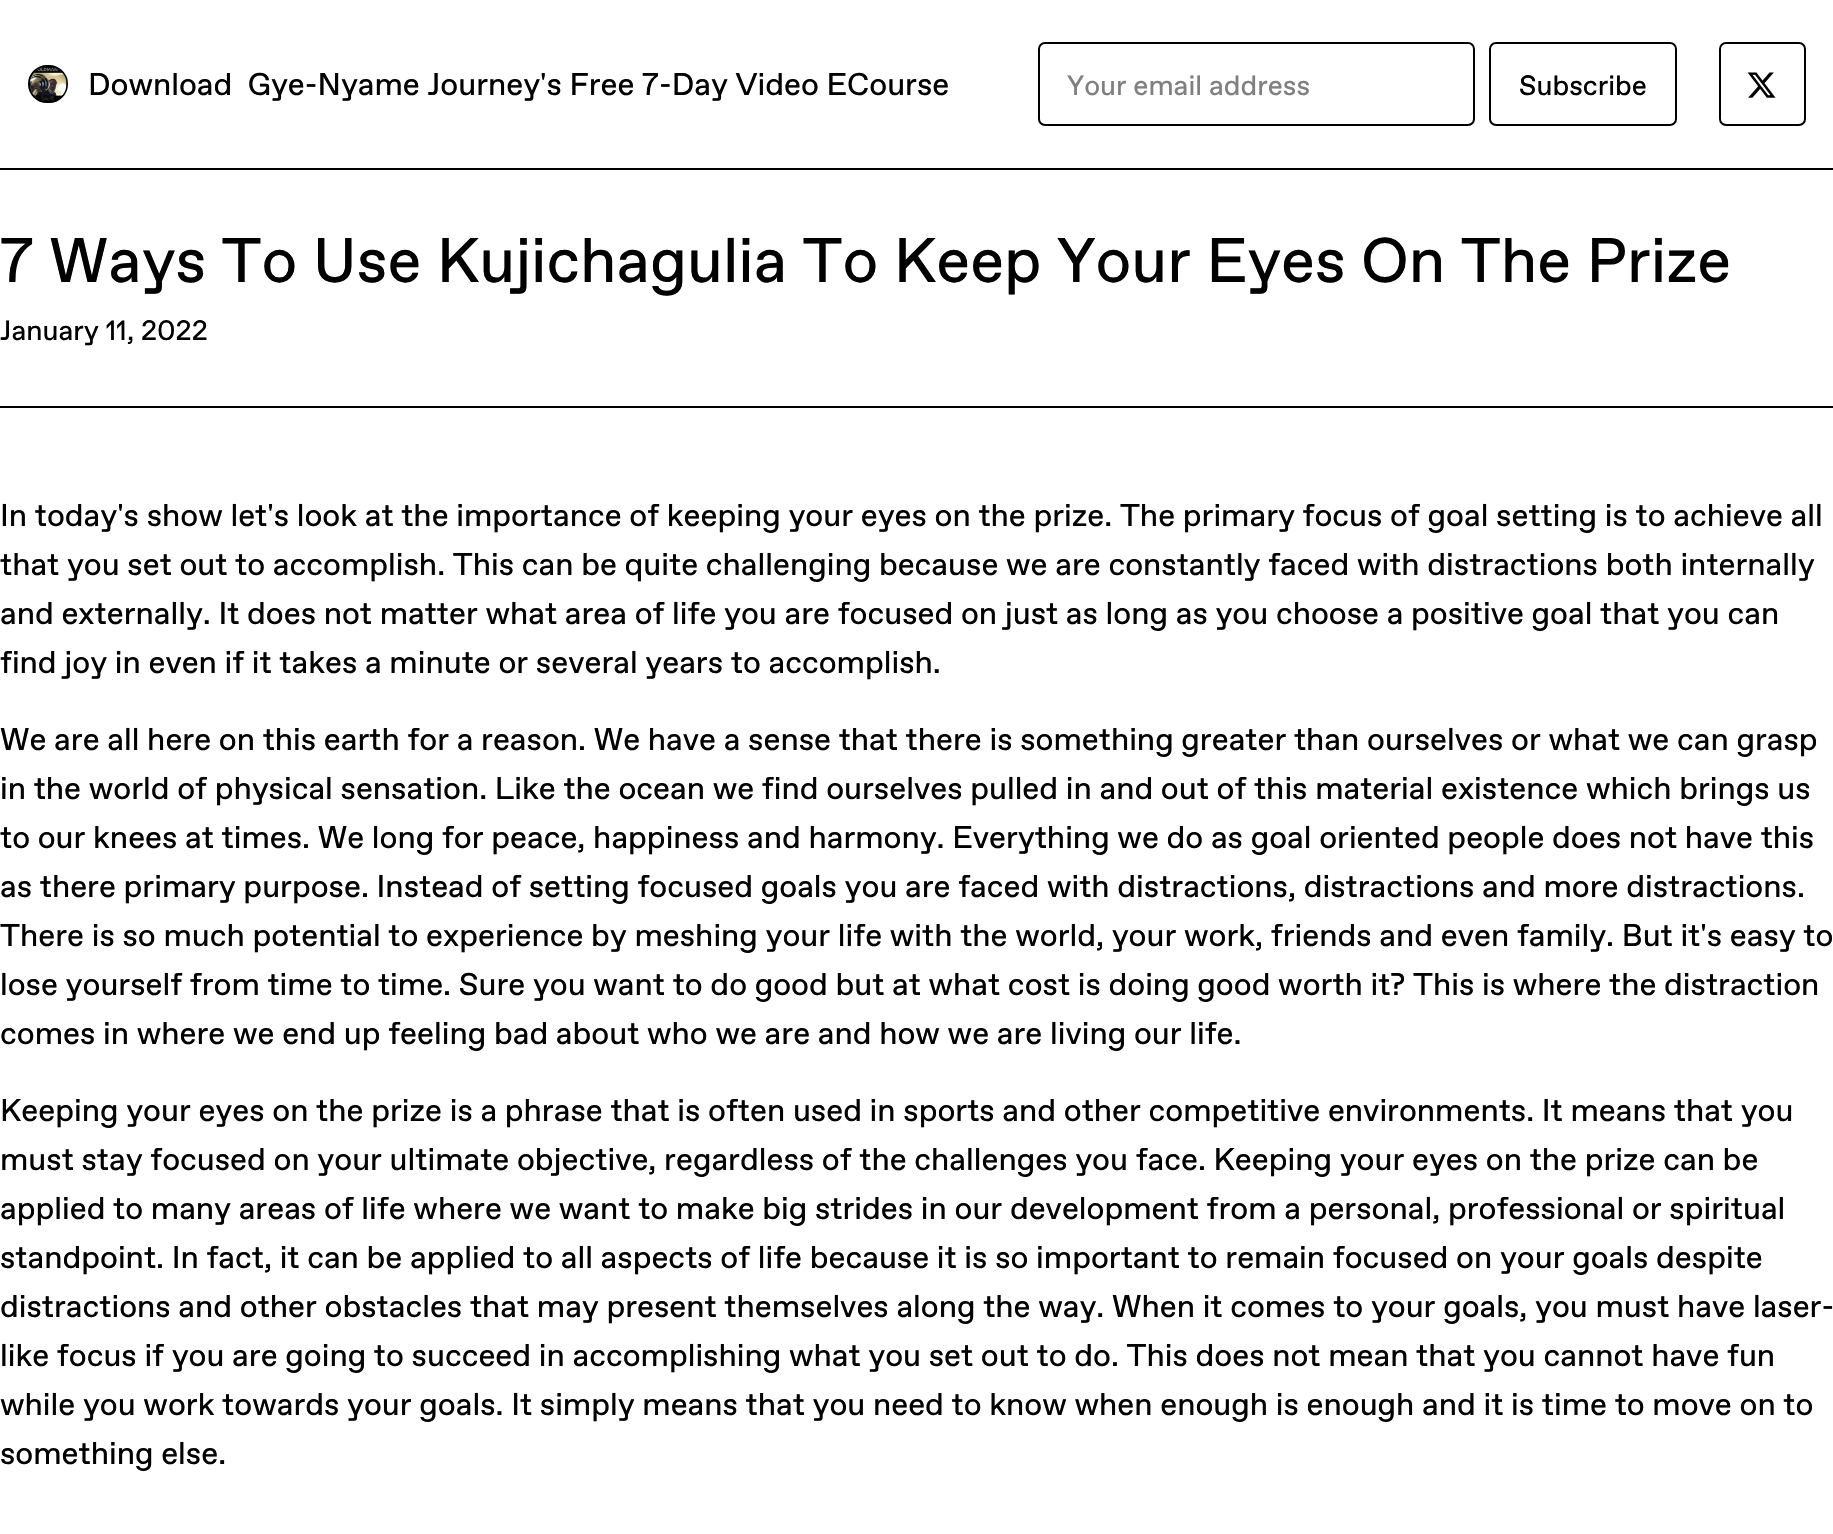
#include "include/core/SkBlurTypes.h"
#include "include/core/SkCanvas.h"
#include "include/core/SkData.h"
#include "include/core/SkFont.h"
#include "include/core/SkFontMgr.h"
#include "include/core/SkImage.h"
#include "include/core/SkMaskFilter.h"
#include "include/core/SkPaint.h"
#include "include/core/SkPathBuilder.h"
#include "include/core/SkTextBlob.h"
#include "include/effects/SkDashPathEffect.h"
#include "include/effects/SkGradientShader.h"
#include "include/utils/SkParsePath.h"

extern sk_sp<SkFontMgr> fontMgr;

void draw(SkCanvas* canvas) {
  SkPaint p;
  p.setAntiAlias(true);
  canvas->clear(SK_ColorWHITE);
  p.setColor(SK_ColorBLACK);
  canvas->drawRect(SkRect::MakeLTRB(0, 168, 1833, 170), p);
  p.setStyle(SkPaint::kStroke_Style);
  p.setStrokeWidth(2);
  canvas->drawRoundRect(SkRect::MakeLTRB(29, 66, 67, 102), 18, 18, p);
  canvas->drawImageRect(SkImages::DeferredFromEncodedData(SkData::MakeFromFileName("images/1.png")), SkRect::MakeLTRB(29, 67, 67, 101), SkSamplingOptions());
  canvas->drawRoundRect(SkRect::MakeLTRB(1039, 43, 1474, 125), 6, 6, p);
  canvas->drawRoundRect(SkRect::MakeLTRB(1490, 43, 1676, 125), 6, 6, p);
  canvas->drawRoundRect(SkRect::MakeLTRB(1720, 43, 1805, 125), 6, 6, p);
  canvas->drawImageRect(SkImages::DeferredFromEncodedData(SkData::MakeFromFileName("images/2.png")), SkRect::MakeLTRB(1747, 72, 1776, 98), SkSamplingOptions());
  p.setStyle(SkPaint::kFill_Style);
  canvas->drawRect(SkRect::MakeLTRB(0, 406, 1833, 408), p);
  SkFont font1(fontMgr->matchFamilyStyle("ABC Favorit", SkFontStyle::Normal()), 31.5f);
  font1.setSubpixel(true);
  canvas->drawString("Download  Gye-Nyame Journey's Free 7-Day Video ECourse", 88, 95, font1, p);
  SkFont font2(fontMgr->matchFamilyStyle("ABC Favorit", SkFontStyle::Normal()), 28);
  font2.setSubpixel(true);
  p.setColor(SkColorSetRGB(128, 128, 128));
  canvas->drawString("Your email address", 1067, 95, font2, p);
  p.setColor(SK_ColorBLACK);
  canvas->drawString("Subscribe", 1519, 95, font2, p);
  SkFont font3(fontMgr->matchFamilyStyle("ABC Favorit", SkFontStyle::Normal()), 63);
  font3.setSubpixel(true);
  canvas->drawString("7 Ways To Use Kujichagulia To Keep Your Eyes On The Prize", 0, 282, font3, p);
  canvas->drawString("January 11, 2022", 0, 340, font2, p);
  canvas->drawString("In today's show let's look at the importance of keeping your eyes on the prize. The primary focus of goal setting is to achieve all", 0, 526, font1, p);
  canvas->drawString("that you set out to accomplish. This can be quite challenging because we are constantly faced with distractions both internally", 0, 575, font1, p);
  canvas->drawString("and externally. It does not matter what area of life you are focused on just as long as you choose a positive goal that you can", 0, 624, font1, p);
  canvas->drawString("find joy in even if it takes a minute or several years to accomplish.", 0, 673, font1, p);
  canvas->drawString("We are all here on this earth for a reason. We have a sense that there is something greater than ourselves or what we can grasp", 0, 750, font1, p);
  canvas->drawString("in the world of physical sensation. Like the ocean we find ourselves pulled in and out of this material existence which brings us", 0, 799, font1, p);
  canvas->drawString("to our knees at times. We long for peace, happiness and harmony. Everything we do as goal oriented people does not have this", 0, 848, font1, p);
  canvas->drawString("as there primary purpose. Instead of setting focused goals you are faced with distractions, distractions and more distractions.", 0, 897, font1, p);
  canvas->drawString("There is so much potential to experience by meshing your life with the world, your work, friends and even family. But it's easy to", 0, 946, font1, p);
  canvas->drawString("lose yourself from time to time. Sure you want to do good but at what cost is doing good worth it? This is where the distraction", 0, 995, font1, p);
  canvas->drawString("comes in where we end up feeling bad about who we are and how we are living our life.", 0, 1044, font1, p);
  canvas->drawString("Keeping your eyes on the prize is a phrase that is often used in sports and other competitive environments. It means that you", 0, 1121, font1, p);
  canvas->drawString("must stay focused on your ultimate objective, regardless of the challenges you face. Keeping your eyes on the prize can be", 0, 1170, font1, p);
  canvas->drawString("applied to many areas of life where we want to make big strides in our development from a personal, professional or spiritual", 0, 1219, font1, p);
  canvas->drawString("standpoint. In fact, it can be applied to all aspects of life because it is so important to remain focused on your goals despite", 0, 1268, font1, p);
  canvas->drawString("distractions and other obstacles that may present themselves along the way. When it comes to your goals, you must have laser-", 0, 1317, font1, p);
  canvas->drawString("like focus if you are going to succeed in accomplishing what you set out to do. This does not mean that you cannot have fun", 0, 1366, font1, p);
  canvas->drawString("while you work towards your goals. It simply means that you need to know when enough is enough and it is time to move on to", 0, 1415, font1, p);
  canvas->drawString("something else.", 0, 1464, font1, p);
}
